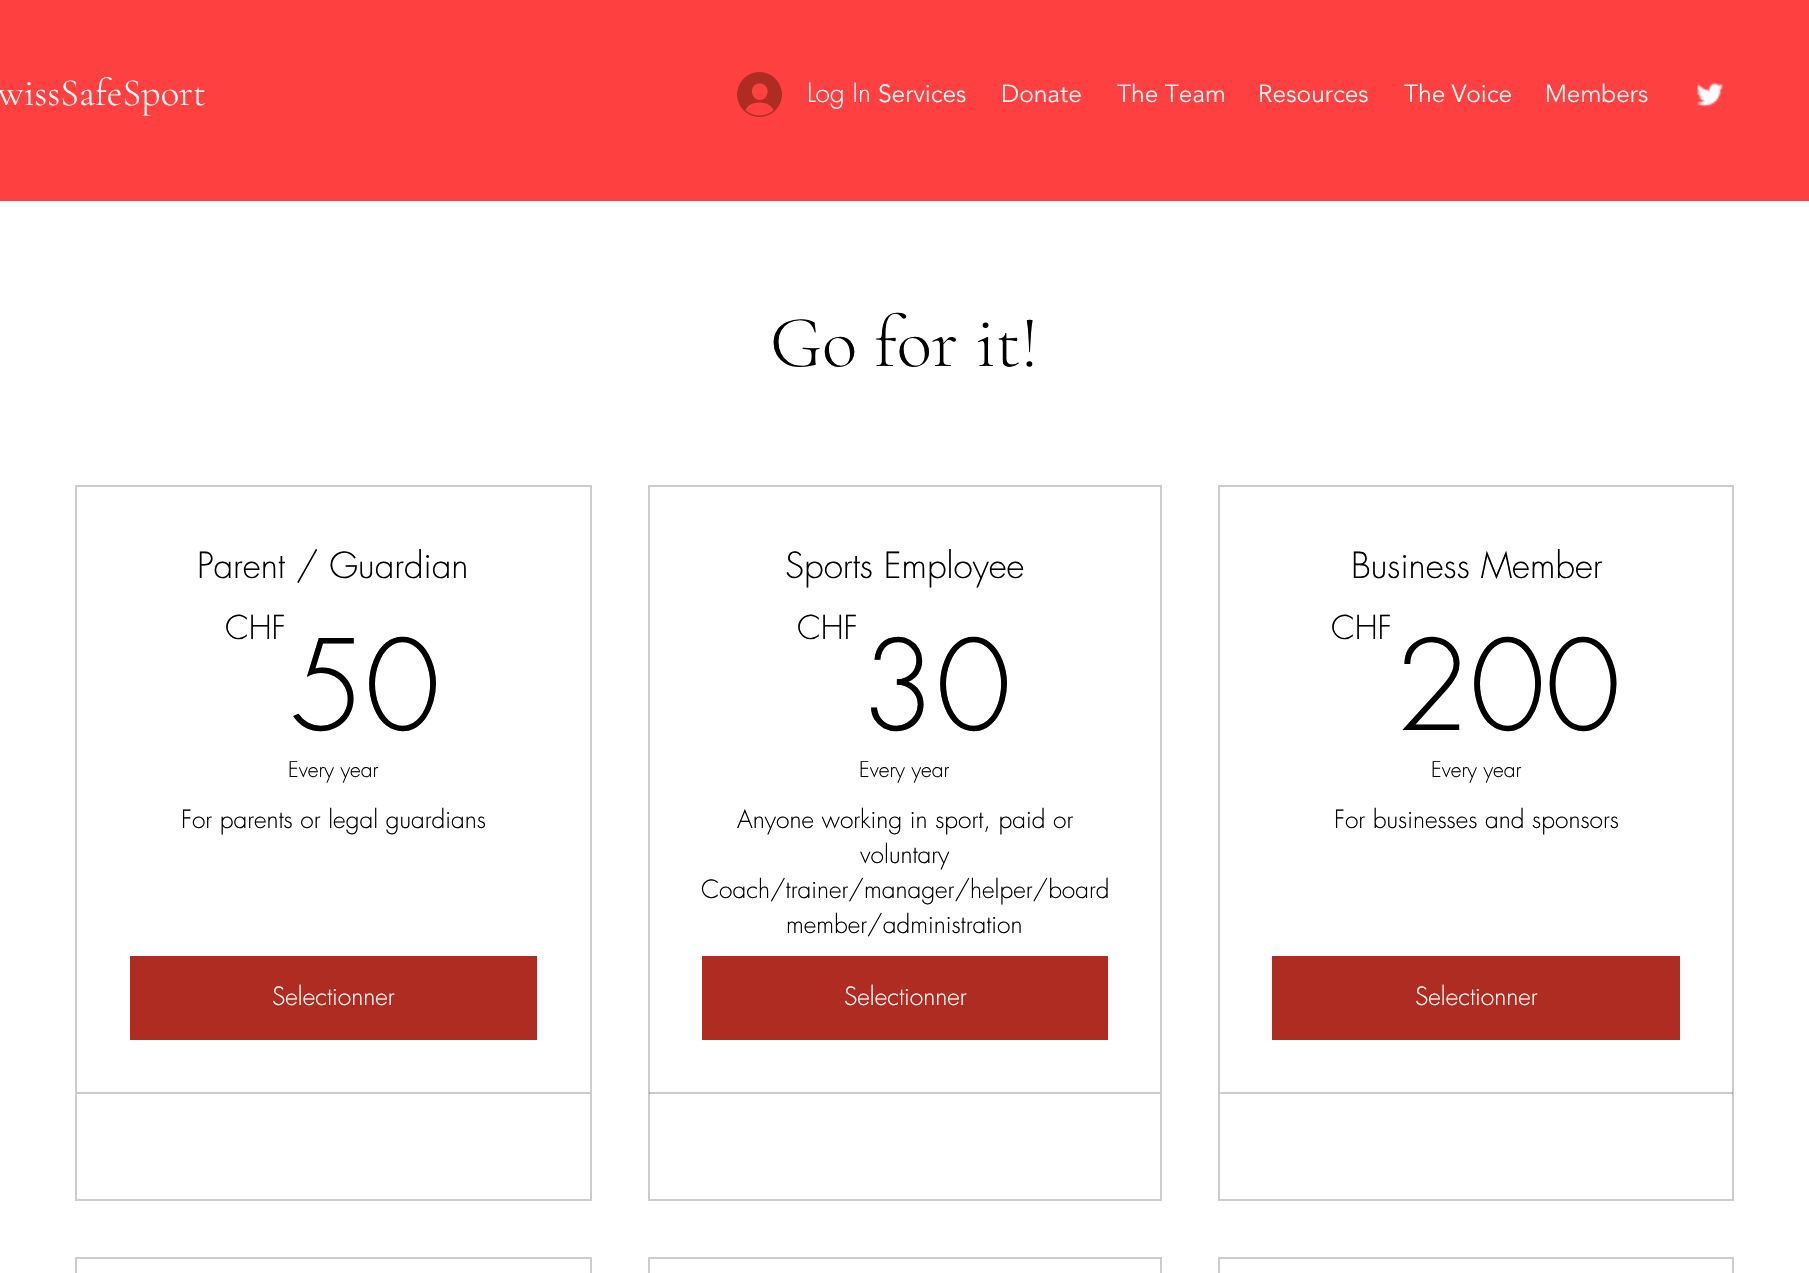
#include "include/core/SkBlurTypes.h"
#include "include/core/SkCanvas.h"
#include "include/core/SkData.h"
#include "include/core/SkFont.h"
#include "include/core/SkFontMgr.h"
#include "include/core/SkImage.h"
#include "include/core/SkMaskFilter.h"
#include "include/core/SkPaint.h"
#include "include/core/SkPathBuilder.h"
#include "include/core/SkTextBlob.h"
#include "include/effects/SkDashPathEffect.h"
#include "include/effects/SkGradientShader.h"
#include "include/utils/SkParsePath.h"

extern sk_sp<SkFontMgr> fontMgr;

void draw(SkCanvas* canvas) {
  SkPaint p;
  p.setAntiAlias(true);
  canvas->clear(SK_ColorWHITE);
  p.setColor(SkColorSetRGB(255, 64, 64));
  canvas->drawRect(SkRect::MakeLTRB(0, 0, 1809, 201), p);
  canvas->drawImageRect(SkImages::DeferredFromEncodedData(SkData::MakeFromFileName("images/1.png")), SkRect::MakeLTRB(1696, 82, 1724, 107), SkSamplingOptions());
  canvas->drawImageRect(SkImages::DeferredFromEncodedData(SkData::MakeFromFileName("images/2.png")), SkRect::MakeLTRB(737, 72, 782, 117), SkSamplingOptions());
  p.setStyle(SkPaint::kStroke_Style);
  p.setStrokeWidth(2);
  p.setColor(SkColorSetRGB(204, 204, 204));
  canvas->drawRect(SkRect::MakeLTRB(76, 486, 591, 1200), p);
  p.setStyle(SkPaint::kFill_Style);
  p.setColor(SkColorSetRGB(174, 44, 33));
  canvas->drawRect(SkRect::MakeLTRB(130, 956, 537, 1040), p);
  p.setColor(SkColorSetRGB(204, 204, 204));
  canvas->drawRect(SkRect::MakeLTRB(77, 1092, 590, 1094), p);
  p.setStyle(SkPaint::kStroke_Style);
  canvas->drawRect(SkRect::MakeLTRB(649, 486, 1161, 1200), p);
  p.setStyle(SkPaint::kFill_Style);
  p.setColor(SkColorSetRGB(174, 44, 33));
  canvas->drawRect(SkRect::MakeLTRB(702, 956, 1108, 1040), p);
  p.setColor(SkColorSetARGB(51, 0, 0, 0));
  canvas->drawRect(SkRect::MakeLTRB(649, 1092, 1160, 1094), p);
  p.setStyle(SkPaint::kStroke_Style);
  p.setColor(SkColorSetRGB(204, 204, 204));
  canvas->drawRect(SkRect::MakeLTRB(1219, 486, 1733, 1200), p);
  p.setStyle(SkPaint::kFill_Style);
  p.setColor(SkColorSetRGB(174, 44, 33));
  canvas->drawRect(SkRect::MakeLTRB(1272, 956, 1680, 1040), p);
  p.setColor(SkColorSetARGB(51, 0, 0, 0));
  canvas->drawRect(SkRect::MakeLTRB(1220, 1092, 1733, 1094), p);
  p.setStyle(SkPaint::kStroke_Style);
  p.setColor(SkColorSetRGB(204, 204, 204));
  canvas->drawRect(SkRect::MakeLTRB(76, 1258, 591, 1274), p);
  canvas->drawRect(SkRect::MakeLTRB(649, 1258, 1161, 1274), p);
  canvas->drawRect(SkRect::MakeLTRB(1219, 1258, 1733, 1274), p);
  SkFont font1(fontMgr->matchFamilyStyle("Cormorant Garamond", SkFontStyle(300, SkFontStyle::kNormal_Width, SkFontStyle::kUpright_Slant)), 38.5f);
  font1.setSubpixel(true);
  p.setStyle(SkPaint::kFill_Style);
  p.setColor(SK_ColorWHITE);
  canvas->drawString("wissSafeSport", -2, 105, font1, p);
  SkFont font2(fontMgr->matchFamilyStyle("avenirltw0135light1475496", SkFontStyle(300, SkFontStyle::kNormal_Width, SkFontStyle::kUpright_Slant)), 24.5f);
  font2.setSubpixel(true);
  canvas->drawString("Services", 878, 102, font2, p);
  canvas->drawString("Donate", 1001, 102, font2, p);
  canvas->drawString("The Team", 1117, 102, font2, p);
  canvas->drawString("Resources", 1258, 102, font2, p);
  canvas->drawString("The Voice", 1404, 102, font2, p);
  p.setColor(SkColorSetRGB(247, 247, 247));
  canvas->drawString("Members", 1545, 102, font2, p);
  SkFont font3(fontMgr->matchFamilyStyle("futura", SkFontStyle(300, SkFontStyle::kNormal_Width, SkFontStyle::kUpright_Slant)), 26);
  font3.setSubpixel(true);
  p.setColor(SK_ColorWHITE);
  canvas->drawString("Log In", 807, 102, font3, p);
  SkFont font4(fontMgr->matchFamilyStyle("Cormorant Garamond", SkFontStyle(300, SkFontStyle::kNormal_Width, SkFontStyle::kUpright_Slant)), 73.5f);
  font4.setSubpixel(true);
  p.setColor(SK_ColorBLACK);
  canvas->drawString("Go for it!", 770, 366, font4, p);
  SkFont font5(fontMgr->matchFamilyStyle("futura", SkFontStyle(300, SkFontStyle::kNormal_Width, SkFontStyle::kUpright_Slant)), 35);
  font5.setSubpixel(true);
  canvas->drawString("Parent / Guardian", 197, 578, font5, p);
  SkFont font6(fontMgr->matchFamilyStyle("futura", SkFontStyle(300, SkFontStyle::kNormal_Width, SkFontStyle::kUpright_Slant)), 32);
  font6.setSubpixel(true);
  canvas->drawString("CHF", 225, 639, font6, p);
  SkFont font7(fontMgr->matchFamilyStyle("futura", SkFontStyle(300, SkFontStyle::kNormal_Width, SkFontStyle::kUpright_Slant)), 122);
  font7.setSubpixel(true);
  canvas->drawString("50", 289, 730, font7, p);
  SkFont font8(fontMgr->matchFamilyStyle("futura", SkFontStyle(300, SkFontStyle::kNormal_Width, SkFontStyle::kUpright_Slant)), 21);
  font8.setSubpixel(true);
  canvas->drawString("Every year", 288, 777, font8, p);
  SkFont font9(fontMgr->matchFamilyStyle("futura", SkFontStyle(300, SkFontStyle::kNormal_Width, SkFontStyle::kUpright_Slant)), 24.5f);
  font9.setSubpixel(true);
  canvas->drawString("For parents or legal guardians", 181, 828, font9, p);
  p.setColor(SK_ColorWHITE);
  canvas->drawString("Selectionner", 272, 1005, font9, p);
  p.setColor(SK_ColorBLACK);
  canvas->drawString("Sports Employee", 785, 578, font5, p);
  canvas->drawString("CHF", 797, 639, font6, p);
  canvas->drawString("30", 860, 730, font7, p);
  canvas->drawString("Every year", 859, 777, font8, p);
  canvas->drawString("Anyone working in sport, paid or", 737, 828, font9, p);
  canvas->drawString("voluntary", 860, 863, font9, p);
  canvas->drawString("Coach/trainer/manager/helper/board", 701, 898, font9, p);
  canvas->drawString("member/administration", 786, 933, font9, p);
  p.setColor(SK_ColorWHITE);
  canvas->drawString("Selectionner", 844, 1005, font9, p);
  p.setColor(SK_ColorBLACK);
  canvas->drawString("Business Member", 1351, 578, font5, p);
  canvas->drawString("CHF", 1331, 639, font6, p);
  canvas->drawString("200", 1394, 730, font7, p);
  canvas->drawString("Every year", 1431, 777, font8, p);
  canvas->drawString("For businesses and sponsors", 1334, 828, font9, p);
  p.setColor(SK_ColorWHITE);
  canvas->drawString("Selectionner", 1415, 1005, font9, p);
}
